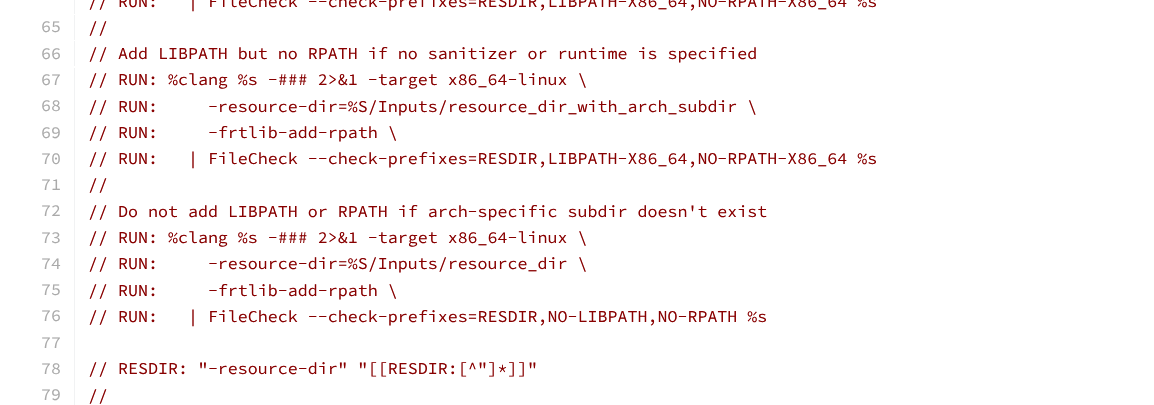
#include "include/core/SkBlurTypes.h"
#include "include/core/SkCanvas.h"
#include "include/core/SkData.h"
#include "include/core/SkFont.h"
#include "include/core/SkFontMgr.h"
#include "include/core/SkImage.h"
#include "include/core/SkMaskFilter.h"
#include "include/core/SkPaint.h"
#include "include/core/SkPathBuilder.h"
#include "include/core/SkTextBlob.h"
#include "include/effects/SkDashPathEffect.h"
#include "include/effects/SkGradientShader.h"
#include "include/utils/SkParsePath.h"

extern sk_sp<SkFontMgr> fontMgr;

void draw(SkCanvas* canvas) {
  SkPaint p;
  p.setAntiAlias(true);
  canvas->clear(SK_ColorWHITE);
  p.setColor(SkColorSetRGB(241, 242, 243));
  canvas->drawRect(SkRect::MakeLTRB(74, 0, 75, 14), p);
  canvas->drawRect(SkRect::MakeLTRB(74, 15, 75, 40), p);
  canvas->drawRect(SkRect::MakeLTRB(74, 41, 75, 66), p);
  canvas->drawRect(SkRect::MakeLTRB(74, 68, 75, 405), p);
  SkFont font1(fontMgr->matchFamilyStyle("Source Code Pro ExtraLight", SkFontStyle(200, SkFontStyle::kNormal_Width, SkFontStyle::kUpright_Slant)), 16.65f);
  font1.setSubpixel(true);
  p.setColor(SkColorSetRGB(136, 0, 0));
  canvas->drawString("// RUN:   | FileCheck --check-prefixes=RESDIR,LIBPATH-X86_64,NO-RPATH-X86_64 %s", 88, 7, font1, p);
  p.setColor(SkColorSetRGB(170, 170, 170));
  canvas->drawString("65", 41, 32, font1, p);
  p.setColor(SkColorSetRGB(136, 0, 0));
  canvas->drawString("//", 88, 33, font1, p);
  p.setColor(SkColorSetRGB(170, 170, 170));
  canvas->drawString("66", 41, 59, font1, p);
  p.setColor(SkColorSetRGB(136, 0, 0));
  canvas->drawString("// Add LIBPATH but no RPATH if no sanitizer or runtime is specified", 88, 59, font1, p);
  p.setColor(SkColorSetRGB(170, 170, 170));
  canvas->drawString("67", 41, 85, font1, p);
  p.setColor(SkColorSetRGB(136, 0, 0));
  canvas->drawString("// RUN: %clang %s -### 2>&1 -target x86_64-linux \\", 88, 85, font1, p);
  p.setColor(SkColorSetRGB(170, 170, 170));
  canvas->drawString("68", 41, 111, font1, p);
  p.setColor(SkColorSetRGB(136, 0, 0));
  canvas->drawString("// RUN:     -resource-dir=%S/Inputs/resource_dir_with_arch_subdir \\", 88, 112, font1, p);
  p.setColor(SkColorSetRGB(170, 170, 170));
  canvas->drawString("69", 41, 138, font1, p);
  p.setColor(SkColorSetRGB(136, 0, 0));
  canvas->drawString("// RUN:     -frtlib-add-rpath \\", 88, 138, font1, p);
  p.setColor(SkColorSetRGB(170, 170, 170));
  canvas->drawString("70", 41, 164, font1, p);
  p.setColor(SkColorSetRGB(136, 0, 0));
  canvas->drawString("// RUN:   | FileCheck --check-prefixes=RESDIR,LIBPATH-X86_64,NO-RPATH-X86_64 %s", 88, 164, font1, p);
  p.setColor(SkColorSetRGB(170, 170, 170));
  canvas->drawString("71", 41, 190, font1, p);
  p.setColor(SkColorSetRGB(136, 0, 0));
  canvas->drawString("//", 88, 190, font1, p);
  p.setColor(SkColorSetRGB(170, 170, 170));
  canvas->drawString("72", 41, 216, font1, p);
  p.setColor(SkColorSetRGB(136, 0, 0));
  canvas->drawString("// Do not add LIBPATH or RPATH if arch-specific subdir doesn't exist", 88, 217, font1, p);
  p.setColor(SkColorSetRGB(170, 170, 170));
  canvas->drawString("73", 41, 243, font1, p);
  p.setColor(SkColorSetRGB(136, 0, 0));
  canvas->drawString("// RUN: %clang %s -### 2>&1 -target x86_64-linux \\", 88, 243, font1, p);
  p.setColor(SkColorSetRGB(170, 170, 170));
  canvas->drawString("74", 41, 269, font1, p);
  p.setColor(SkColorSetRGB(136, 0, 0));
  canvas->drawString("// RUN:     -resource-dir=%S/Inputs/resource_dir \\", 88, 269, font1, p);
  p.setColor(SkColorSetRGB(170, 170, 170));
  canvas->drawString("75", 41, 295, font1, p);
  p.setColor(SkColorSetRGB(136, 0, 0));
  canvas->drawString("// RUN:     -frtlib-add-rpath \\", 88, 296, font1, p);
  p.setColor(SkColorSetRGB(170, 170, 170));
  canvas->drawString("76", 41, 321, font1, p);
  p.setColor(SkColorSetRGB(136, 0, 0));
  canvas->drawString("// RUN:   | FileCheck --check-prefixes=RESDIR,NO-LIBPATH,NO-RPATH %s", 88, 322, font1, p);
  p.setColor(SkColorSetRGB(170, 170, 170));
  canvas->drawString("77", 41, 348, font1, p);
  canvas->drawString("78", 41, 374, font1, p);
  p.setColor(SkColorSetRGB(136, 0, 0));
  canvas->drawString("// RESDIR: \"-resource-dir\" \"[[RESDIR:[^\"]*]]\"", 88, 374, font1, p);
  p.setColor(SkColorSetRGB(170, 170, 170));
  canvas->drawString("79", 41, 400, font1, p);
  p.setColor(SkColorSetRGB(136, 0, 0));
  canvas->drawString("//", 88, 401, font1, p);
}
